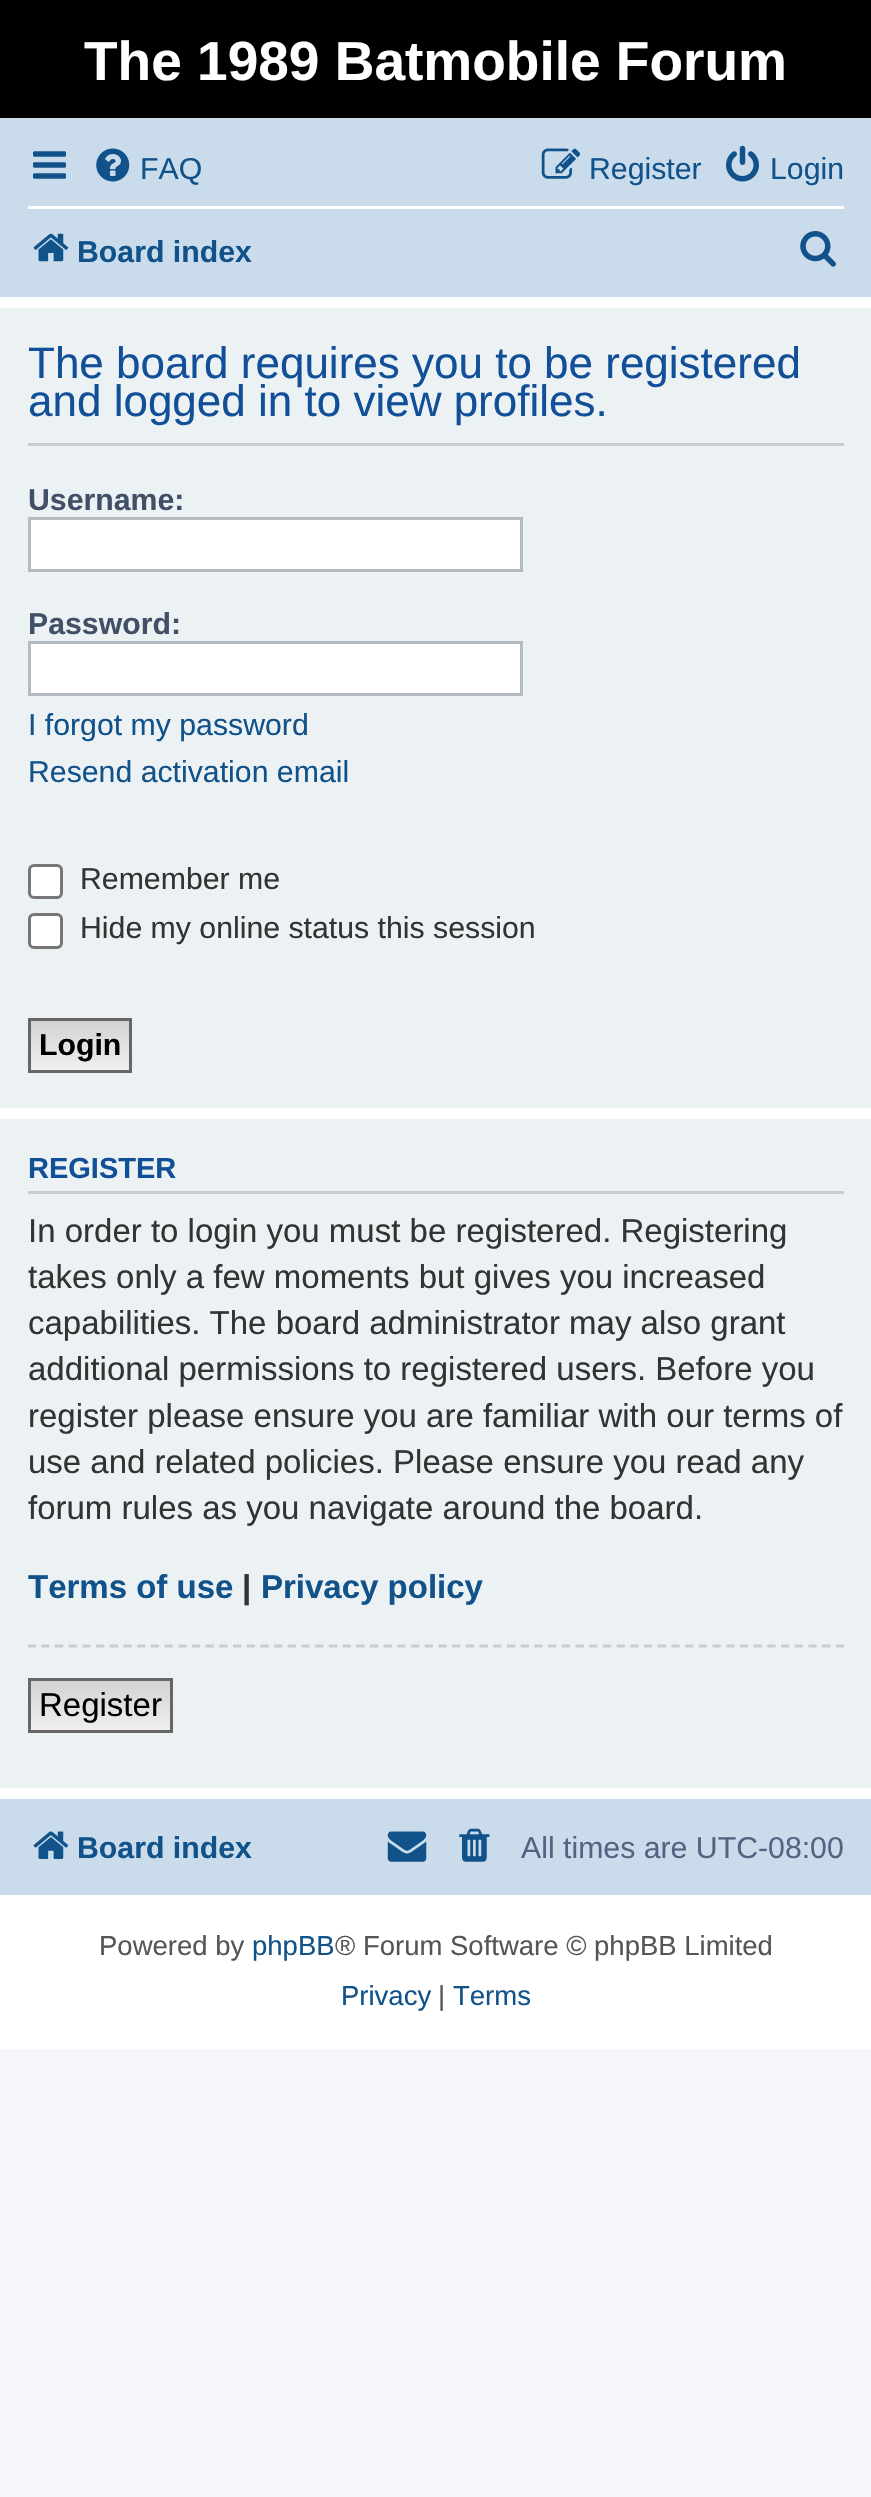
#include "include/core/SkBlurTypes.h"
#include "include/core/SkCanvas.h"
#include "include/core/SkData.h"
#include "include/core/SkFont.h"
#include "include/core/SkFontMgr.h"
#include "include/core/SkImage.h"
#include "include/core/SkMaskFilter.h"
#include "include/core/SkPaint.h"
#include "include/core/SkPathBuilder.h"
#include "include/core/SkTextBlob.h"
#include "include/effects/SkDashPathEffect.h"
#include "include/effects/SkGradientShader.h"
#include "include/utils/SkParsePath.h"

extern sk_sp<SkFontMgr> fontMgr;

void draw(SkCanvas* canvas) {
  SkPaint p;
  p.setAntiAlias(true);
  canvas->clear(SkColorSetRGB(245, 247, 250));
  p.setColor(SK_ColorWHITE);
  canvas->drawRect(SkRect::MakeLTRB(0, 297, 871, 2049), p);
  p.setColor(SK_ColorBLACK);
  canvas->drawRect(SkRect::MakeLTRB(0, 0, 871, 118), p);
  p.setColor(SkColorSetRGB(202, 220, 235));
  canvas->drawRect(SkRect::MakeLTRB(0, 118, 871, 297), p);
  canvas->drawImageRect(SkImages::DeferredFromEncodedData(SkData::MakeFromFileName("images/1.png")), SkRect::MakeLTRB(33, 151, 66, 179), SkSamplingOptions());
  canvas->drawImageRect(SkImages::DeferredFromEncodedData(SkData::MakeFromFileName("images/2.png")), SkRect::MakeLTRB(96, 148, 130, 182), SkSamplingOptions());
  canvas->drawImageRect(SkImages::DeferredFromEncodedData(SkData::MakeFromFileName("images/3.png")), SkRect::MakeLTRB(541, 148, 580, 179), SkSamplingOptions());
  canvas->drawImageRect(SkImages::DeferredFromEncodedData(SkData::MakeFromFileName("images/4.png")), SkRect::MakeLTRB(726, 145, 759, 182), SkSamplingOptions());
  p.setColor(SK_ColorWHITE);
  canvas->drawRect(SkRect::MakeLTRB(28, 206, 844, 209), p);
  canvas->drawImageRect(SkImages::DeferredFromEncodedData(SkData::MakeFromFileName("images/5.png")), SkRect::MakeLTRB(33, 233, 69, 262), SkSamplingOptions());
  canvas->drawImageRect(SkImages::DeferredFromEncodedData(SkData::MakeFromFileName("images/6.png")), SkRect::MakeLTRB(800, 231, 836, 267), SkSamplingOptions());
  p.setColor(SkColorSetRGB(236, 241, 243));
  canvas->drawRect(SkRect::MakeLTRB(0, 308, 871, 1108), p);
  p.setColor(SkColorSetRGB(204, 204, 204));
  canvas->drawRect(SkRect::MakeLTRB(28, 443, 844, 446), p);
  p.setColor(SK_ColorWHITE);
  canvas->drawRect(SkRect::MakeLTRB(29.5f, 518.5f, 521.5f, 570.5f), p);
  p.setStyle(SkPaint::kStroke_Style);
  p.setStrokeWidth(3);
  p.setColor(SkColorSetRGB(180, 186, 192));
  canvas->drawRect(SkRect::MakeLTRB(29.5f, 518.5f, 521.5f, 570.5f), p);
  p.setStyle(SkPaint::kFill_Style);
  p.setColor(SK_ColorWHITE);
  canvas->drawRect(SkRect::MakeLTRB(29.5f, 642.5f, 521.5f, 694.5f), p);
  p.setStyle(SkPaint::kStroke_Style);
  p.setColor(SkColorSetRGB(180, 186, 192));
  canvas->drawRect(SkRect::MakeLTRB(29.5f, 642.5f, 521.5f, 694.5f), p);
  p.setStyle(SkPaint::kFill_Style);
  p.setColor(SK_ColorWHITE);
  canvas->drawRoundRect(SkRect::MakeLTRB(29.5f, 865.5f, 61.5f, 897.5f), 4.5f, 4.5f, p);
  p.setStyle(SkPaint::kStroke_Style);
  p.setColor(SkColorSetRGB(118, 118, 118));
  canvas->drawRoundRect(SkRect::MakeLTRB(29.5f, 865.5f, 61.5f, 897.5f), 4.5f, 4.5f, p);
  p.setStyle(SkPaint::kFill_Style);
  p.setColor(SK_ColorWHITE);
  canvas->drawRoundRect(SkRect::MakeLTRB(29.5f, 914.5f, 61.5f, 947.5f), 4.5f, 4.5f, p);
  p.setStyle(SkPaint::kStroke_Style);
  p.setColor(SkColorSetRGB(118, 118, 118));
  canvas->drawRoundRect(SkRect::MakeLTRB(29.5f, 914.5f, 61.5f, 947.5f), 4.5f, 4.5f, p);
  p.setStyle(SkPaint::kFill_Style);
  {
    const SkColor colors[] = {SkColorSetRGB(210, 210, 210), SkColorSetRGB(239, 239, 239)};
    const float stops[] = {0, 1};
    const SkPoint ends[] = {{80, 1020}, {80, 1070}};
    p.setShader(SkGradientShader::MakeLinear(ends, colors, stops, 2, SkTileMode::kClamp));
    p.setAlpha(255);
  }
  canvas->drawRect(SkRect::MakeLTRB(31, 1021, 129, 1070), p);
  p.setStyle(SkPaint::kStroke_Style);
  p.setShader(nullptr);
  p.setColor(SkColorSetRGB(102, 102, 102));
  canvas->drawRect(SkRect::MakeLTRB(29.5f, 1019.5f, 130.5f, 1071.5f), p);
  p.setStyle(SkPaint::kFill_Style);
  p.setColor(SkColorSetRGB(236, 241, 243));
  canvas->drawRect(SkRect::MakeLTRB(0, 1119, 871, 1788), p);
  p.setColor(SkColorSetRGB(204, 204, 204));
  canvas->drawRect(SkRect::MakeLTRB(28, 1191, 844, 1194), p);
  canvas->save();
  canvas->clipRect(SkRect::MakeLTRB(28, 1133, 844, 1774));
  p.setStyle(SkPaint::kStroke_Style);
  p.setStrokeWidth(2.8f);
  p.setPathEffect(SkDashPathEffect::Make({{8.25f, 5.45f}}, 0));
  canvas->drawPath(SkPathBuilder().moveTo(27.5f, 1646).lineTo(844, 1646).detach(), p);
  p.setPathEffect(nullptr);
  canvas->restore();
  p.setStyle(SkPaint::kFill_Style);
  {
    const SkColor colors[] = {SkColorSetRGB(210, 210, 210), SkColorSetRGB(239, 239, 239)};
    const float stops[] = {0, 1};
    const SkPoint ends[] = {{100, 1680}, {100, 1730}};
    p.setShader(SkGradientShader::MakeLinear(ends, colors, stops, 2, SkTileMode::kClamp));
    p.setAlpha(255);
  }
  canvas->drawRect(SkRect::MakeLTRB(31, 1681, 170, 1730), p);
  p.setStyle(SkPaint::kStroke_Style);
  p.setStrokeWidth(3);
  p.setShader(nullptr);
  p.setColor(SkColorSetRGB(102, 102, 102));
  canvas->drawRect(SkRect::MakeLTRB(29.5f, 1679.5f, 171.5f, 1731.5f), p);
  p.setStyle(SkPaint::kFill_Style);
  p.setColor(SkColorSetRGB(202, 220, 235));
  canvas->drawRect(SkRect::MakeLTRB(0, 1799, 871, 1895), p);
  canvas->drawImageRect(SkImages::DeferredFromEncodedData(SkData::MakeFromFileName("images/7.png")), SkRect::MakeLTRB(33, 1831, 69, 1859), SkSamplingOptions());
  canvas->drawImageRect(SkImages::DeferredFromEncodedData(SkData::MakeFromFileName("images/8.png")), SkRect::MakeLTRB(387, 1831, 427, 1862), SkSamplingOptions());
  canvas->drawImageRect(SkImages::DeferredFromEncodedData(SkData::MakeFromFileName("images/9.png")), SkRect::MakeLTRB(459, 1828, 490, 1862), SkSamplingOptions());
  SkFont font1(fontMgr->matchFamilyStyle("Liberation Sans", SkFontStyle::Bold()), 55);
  font1.setSubpixel(true);
  p.setColor(SK_ColorWHITE);
  canvas->drawString("The 1989 Batmobile Forum", 84, 80, font1, p);
  SkFont font2(fontMgr->matchFamilyStyle("Liberation Sans", SkFontStyle::Normal()), 30.25f);
  font2.setSubpixel(true);
  p.setColor(SkColorSetRGB(16, 82, 137));
  canvas->drawString("FAQ", 140, 179, font2, p);
  canvas->drawString("Register", 589, 179, font2, p);
  canvas->drawString("Login", 770, 179, font2, p);
  SkFont font3(fontMgr->matchFamilyStyle("Liberation Sans", SkFontStyle::Bold()), 30.25f);
  font3.setSubpixel(true);
  canvas->drawString("Board index", 77, 262, font3, p);
  SkFont font4(fontMgr->matchFamilyStyle("Liberation Sans", SkFontStyle::Normal()), 44);
  font4.setSubpixel(true);
  p.setColor(SkColorSetRGB(17, 80, 152));
  canvas->drawString("The board requires you to be registered", 28, 378, font4, p);
  canvas->drawString("and logged in to view profiles.", 28, 416, font4, p);
  p.setColor(SkColorSetRGB(66, 80, 103));
  canvas->drawString("Username:", 28, 510, font3, p);
  canvas->drawString("Password:", 28, 634, font3, p);
  p.setColor(SkColorSetRGB(16, 82, 137));
  canvas->drawString("I forgot my password", 28, 735, font2, p);
  canvas->drawString("Resend activation email", 28, 782, font2, p);
  p.setColor(SkColorSetRGB(51, 51, 51));
  canvas->drawString("Remember me", 80, 889, font2, p);
  canvas->drawString("Hide my online status this session", 80, 938, font2, p);
  p.setColor(SK_ColorBLACK);
  canvas->drawString("Login", 39, 1055, font3, p);
  SkFont font5(fontMgr->matchFamilyStyle("Liberation Sans", SkFontStyle::Bold()), 29);
  font5.setSubpixel(true);
  p.setColor(SkColorSetRGB(17, 80, 152));
  canvas->drawString("REGISTER", 28, 1178, font5, p);
  SkFont font6(fontMgr->matchFamilyStyle("Liberation Sans", SkFontStyle::Normal()), 33);
  font6.setSubpixel(true);
  p.setColor(SkColorSetRGB(51, 51, 51));
  canvas->drawString("In order to login you must be registered. Registering", 28, 1242, font6, p);
  canvas->drawString("takes only a few moments but gives you increased", 28, 1288, font6, p);
  canvas->drawString("capabilities. The board administrator may also grant", 28, 1334, font6, p);
  canvas->drawString("additional permissions to registered users. Before you", 28, 1380, font6, p);
  canvas->drawString("register please ensure you are familiar with our terms of", 28, 1427, font6, p);
  canvas->drawString("use and related policies. Please ensure you read any", 28, 1473, font6, p);
  canvas->drawString("forum rules as you navigate around the board.", 28, 1519, font6, p);
  canvas->save();
  canvas->clipRect(SkRect::MakeLTRB(28, 1565, 844, 1612));
  SkFont font7(fontMgr->matchFamilyStyle("Liberation Sans", SkFontStyle::Bold()), 33);
  font7.setSubpixel(true);
  p.setColor(SkColorSetRGB(16, 82, 137));
  canvas->drawString("Terms of use", 28, 1598, font7, p);
  canvas->restore();
  p.setColor(SkColorSetRGB(51, 51, 51));
  canvas->drawString("|", 242, 1598, font7, p);
  p.setColor(SkColorSetRGB(16, 82, 137));
  canvas->drawString("Privacy policy", 261, 1598, font7, p);
  p.setColor(SK_ColorBLACK);
  canvas->drawString("Register", 39, 1716, font6, p);
  p.setColor(SkColorSetRGB(16, 82, 137));
  canvas->drawString("Board index", 77, 1858, font3, p);
  p.setColor(SkColorSetRGB(83, 100, 130));
  canvas->drawString("All times are UTC-08:00", 521, 1858, font2, p);
  SkFont font8(fontMgr->matchFamilyStyle("Liberation Sans", SkFontStyle::Normal()), 27.5f);
  font8.setSubpixel(true);
  p.setColor(SkColorSetRGB(85, 85, 85));
  canvas->drawString("Powered by", 99, 1955, font8, p);
  p.setColor(SkColorSetRGB(16, 82, 137));
  canvas->drawString("phpBB", 252, 1955, font8, p);
  p.setColor(SkColorSetRGB(85, 85, 85));
  canvas->drawString("® Forum Software © phpBB Limited", 335, 1955, font8, p);
  p.setColor(SkColorSetRGB(16, 82, 137));
  canvas->drawString("Privacy", 341, 2005, font8, p);
  p.setColor(SkColorSetRGB(85, 85, 85));
  canvas->drawString("|", 438, 2005, font8, p);
  p.setColor(SkColorSetRGB(16, 82, 137));
  canvas->drawString("Terms", 453, 2005, font8, p);
}
